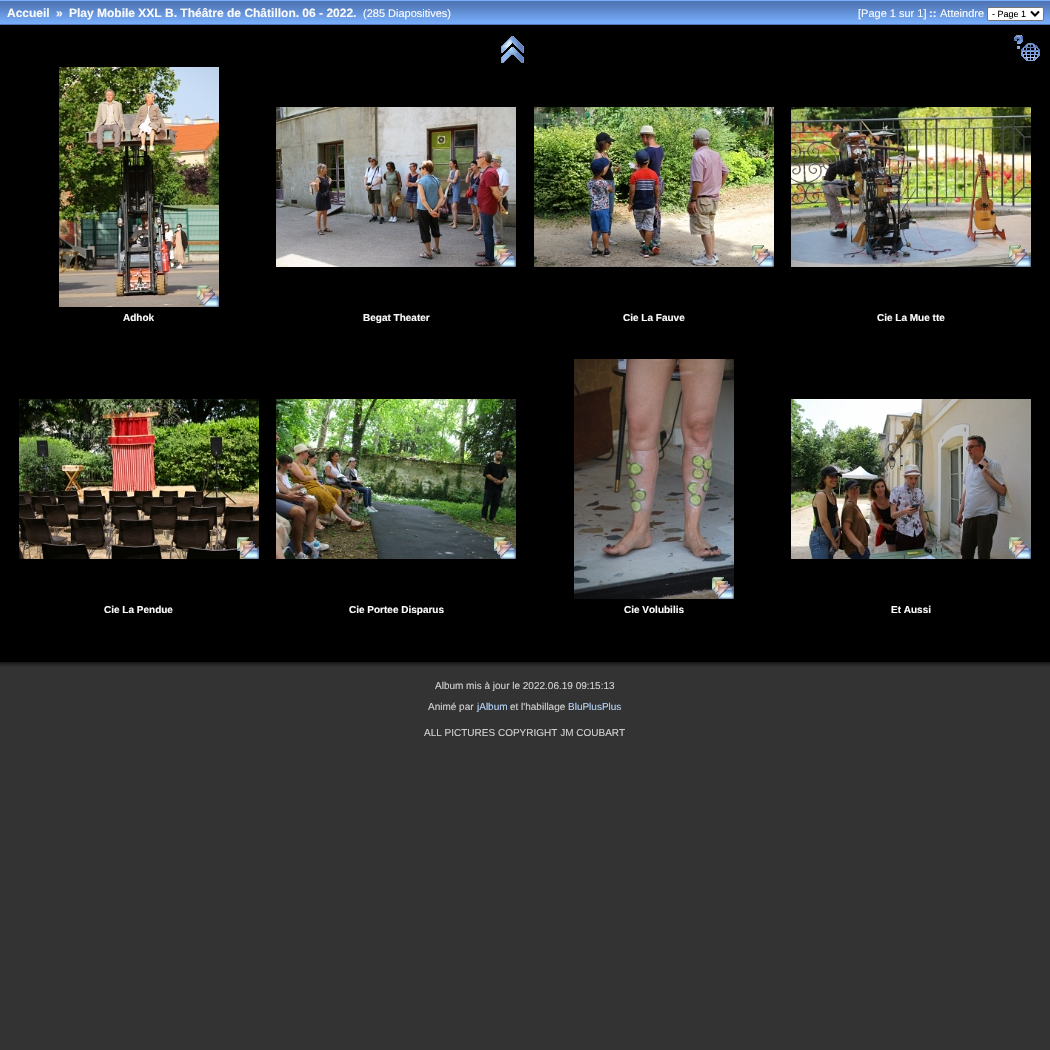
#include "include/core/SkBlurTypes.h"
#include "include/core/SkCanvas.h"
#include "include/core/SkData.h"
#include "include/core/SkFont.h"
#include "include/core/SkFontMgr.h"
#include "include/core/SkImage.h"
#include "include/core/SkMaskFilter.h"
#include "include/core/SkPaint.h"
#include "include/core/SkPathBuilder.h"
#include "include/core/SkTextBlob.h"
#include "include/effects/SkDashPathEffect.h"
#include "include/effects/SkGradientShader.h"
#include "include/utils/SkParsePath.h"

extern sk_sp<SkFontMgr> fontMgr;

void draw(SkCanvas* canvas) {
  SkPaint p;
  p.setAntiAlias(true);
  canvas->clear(SkColorSetRGB(51, 51, 51));
  canvas->drawImageRect(SkImages::DeferredFromEncodedData(SkData::MakeFromFileName("images/1.png")), SkRect::MakeLTRB(0, 0, 1050, 25), SkSamplingOptions());
  p.setColor(SK_ColorWHITE);
  canvas->drawRoundRect(SkRect::MakeLTRB(987.5f, 7.5f, 1043.5f, 20.5f), 1.5f, 1.5f, p);
  p.setStyle(SkPaint::kStroke_Style);
  p.setStrokeWidth(1);
  p.setColor(SkColorSetRGB(118, 118, 118));
  canvas->drawRoundRect(SkRect::MakeLTRB(987.5f, 7.5f, 1043.5f, 20.5f), 1.5f, 1.5f, p);
  p.setStrokeWidth(2);
  p.setColor(SK_ColorBLACK);
  canvas->drawPath(SkPathBuilder().moveTo(1031, 11.5f).lineTo(1035, 15.5f).lineTo(1039, 11.5f).detach(), p);
  p.setStyle(SkPaint::kFill_Style);
  canvas->drawRect(SkRect::MakeLTRB(0, 25, 1050, 662), p);
  canvas->drawImageRect(SkImages::DeferredFromEncodedData(SkData::MakeFromFileName("images/2.png")), SkRect::MakeLTRB(501, 36, 524, 63), SkSamplingOptions());
  canvas->drawImageRect(SkImages::DeferredFromEncodedData(SkData::MakeFromFileName("images/3.png")), SkRect::MakeLTRB(1014, 35, 1040, 61), SkSamplingOptions());
  canvas->drawImageRect(SkImages::DeferredFromEncodedData(SkData::MakeFromFileName("images/4.png")), SkRect::MakeLTRB(59, 67, 219, 307), SkSamplingOptions());
  canvas->drawImageRect(SkImages::DeferredFromEncodedData(SkData::MakeFromFileName("images/5.png")), SkRect::MakeLTRB(276, 107, 516, 267), SkSamplingOptions());
  canvas->drawImageRect(SkImages::DeferredFromEncodedData(SkData::MakeFromFileName("images/6.png")), SkRect::MakeLTRB(534, 107, 774, 267), SkSamplingOptions());
  canvas->drawImageRect(SkImages::DeferredFromEncodedData(SkData::MakeFromFileName("images/7.png")), SkRect::MakeLTRB(791, 107, 1031, 267), SkSamplingOptions());
  canvas->drawImageRect(SkImages::DeferredFromEncodedData(SkData::MakeFromFileName("images/8.png")), SkRect::MakeLTRB(19, 399, 259, 559), SkSamplingOptions());
  canvas->drawImageRect(SkImages::DeferredFromEncodedData(SkData::MakeFromFileName("images/9.png")), SkRect::MakeLTRB(276, 399, 516, 559), SkSamplingOptions());
  canvas->drawImageRect(SkImages::DeferredFromEncodedData(SkData::MakeFromFileName("images/10.png")), SkRect::MakeLTRB(574, 359, 734, 599), SkSamplingOptions());
  canvas->drawImageRect(SkImages::DeferredFromEncodedData(SkData::MakeFromFileName("images/11.png")), SkRect::MakeLTRB(791, 399, 1031, 559), SkSamplingOptions());
  p.setColor(SkColorSetRGB(25, 25, 25));
  canvas->drawRect(SkRect::MakeLTRB(0, 662, 1050, 663), p);
  p.setColor(SkColorSetRGB(31, 31, 31));
  canvas->drawRect(SkRect::MakeLTRB(0, 663, 1050, 664), p);
  p.setColor(SkColorSetRGB(38, 38, 38));
  canvas->drawRect(SkRect::MakeLTRB(0, 664, 1050, 665), p);
  p.setColor(SkColorSetRGB(43, 43, 43));
  canvas->drawRect(SkRect::MakeLTRB(0, 665, 1050, 666), p);
  p.setColor(SkColorSetRGB(47, 47, 47));
  canvas->drawRect(SkRect::MakeLTRB(0, 666, 1050, 667), p);
  SkFont font1(fontMgr->matchFamilyStyle("Liberation Sans", SkFontStyle::Bold()), 12);
  font1.setSubpixel(true);
  p.setColor(SkColorSetRGB(250, 250, 250));
  canvas->drawString("Accueil", 7, 17, font1, p);
  canvas->drawString("»", 56, 17, font1, p);
  canvas->drawString("Play Mobile XXL B. Théâtre de Châtillon. 06 - 2022.", 69, 17, font1, p);
  SkFont font2(fontMgr->matchFamilyStyle("Liberation Sans", SkFontStyle::Normal()), 11);
  font2.setSubpixel(true);
  canvas->drawString("(285 Diapositives)", 363, 17, font2, p);
  canvas->drawString("[Page 1 sur 1]", 858, 17, font2, p);
  SkFont font3(fontMgr->matchFamilyStyle("Liberation Sans", SkFontStyle::Bold()), 11);
  font3.setSubpixel(true);
  canvas->drawString("::", 929, 17, font3, p);
  canvas->drawString("Atteindre", 940, 17, font2, p);
  SkFont font4(fontMgr->matchFamilyStyle("Liberation Sans", SkFontStyle::Normal()), 9);
  font4.setSubpixel(true);
  p.setColor(SK_ColorBLACK);
  canvas->drawString("- Page 1", 992, 17, font4, p);
  SkFont font5(fontMgr->matchFamilyStyle("Liberation Sans", SkFontStyle::Bold()), 10);
  font5.setSubpixel(true);
  p.setColor(SkColorSetRGB(250, 250, 250));
  canvas->drawString("Adhok", 123, 321, font5, p);
  canvas->drawString("Begat Theater", 363, 321, font5, p);
  canvas->drawString("Cie La Fauve", 623, 321, font5, p);
  canvas->drawString("Cie La Mue tte", 877, 321, font5, p);
  canvas->drawString("Cie La Pendue", 104, 613, font5, p);
  canvas->drawString("Cie Portee Disparus", 349, 613, font5, p);
  canvas->drawString("Cie Volubilis", 624, 613, font5, p);
  canvas->drawString("Et Aussi", 891, 613, font5, p);
  SkFont font6(fontMgr->matchFamilyStyle("Liberation Sans", SkFontStyle::Normal()), 10);
  font6.setSubpixel(true);
  p.setColor(SkColorSetRGB(208, 208, 208));
  canvas->drawString("Album mis à jour le 2022.06.19 09:15:13", 435, 689, font6, p);
  canvas->drawString("Animé par", 428, 710, font6, p);
  p.setColor(SkColorSetRGB(180, 210, 248));
  canvas->drawString("jAlbum", 477, 710, font6, p);
  p.setColor(SkColorSetRGB(208, 208, 208));
  canvas->drawString("et l'habillage", 510, 710, font6, p);
  p.setColor(SkColorSetRGB(180, 210, 248));
  canvas->drawString("BluPlusPlus", 568, 710, font6, p);
  p.setColor(SkColorSetRGB(208, 208, 208));
  canvas->drawString("ALL PICTURES COPYRIGHT JM COUBART", 424, 736, font6, p);
}
